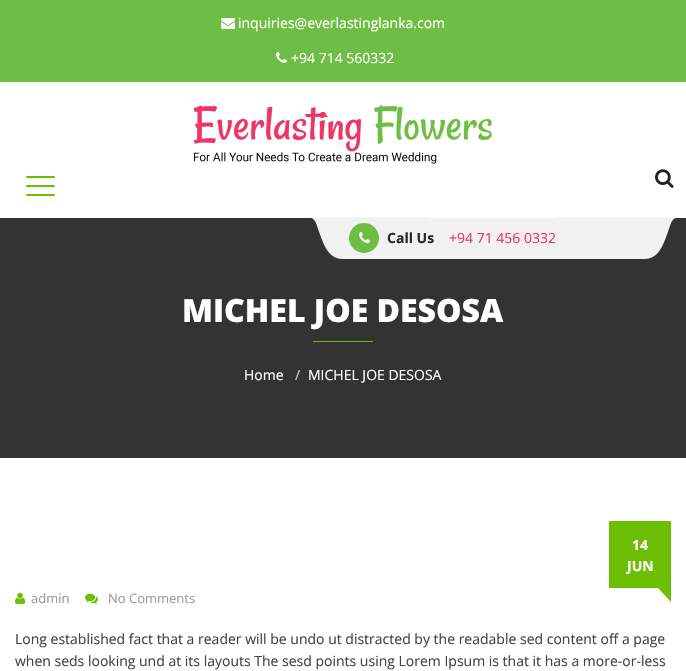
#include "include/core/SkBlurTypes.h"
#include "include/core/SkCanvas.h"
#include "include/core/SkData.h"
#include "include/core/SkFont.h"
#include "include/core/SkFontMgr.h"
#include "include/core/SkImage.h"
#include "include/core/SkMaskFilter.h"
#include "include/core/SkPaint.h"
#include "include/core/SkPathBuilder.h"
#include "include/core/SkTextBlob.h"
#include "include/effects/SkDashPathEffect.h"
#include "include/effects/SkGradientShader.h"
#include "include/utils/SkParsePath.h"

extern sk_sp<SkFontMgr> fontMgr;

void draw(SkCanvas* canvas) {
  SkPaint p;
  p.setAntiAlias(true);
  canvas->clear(SK_ColorWHITE);
  p.setColor(SkColorSetRGB(110, 189, 68));
  canvas->drawRect(SkRect::MakeLTRB(0, 0, 686, 82), p);
  canvas->drawImageRect(SkImages::DeferredFromEncodedData(SkData::MakeFromFileName("images/1.png")), SkRect::MakeLTRB(221, 18, 235, 29), SkSamplingOptions());
  canvas->drawImageRect(SkImages::DeferredFromEncodedData(SkData::MakeFromFileName("images/2.png")), SkRect::MakeLTRB(276, 52, 287, 63), SkSamplingOptions());
  canvas->drawImageRect(SkImages::DeferredFromEncodedData(SkData::MakeFromFileName("images/3.png")), SkRect::MakeLTRB(193, 105, 492, 164), SkSamplingOptions());
  p.setColor(SkColorSetRGB(108, 190, 3));
  canvas->drawRoundRect(SkRect::MakeLTRB(26, 176, 55, 178), 1, 1, p);
  canvas->drawRoundRect(SkRect::MakeLTRB(26, 185, 55, 187), 1, 1, p);
  canvas->drawRoundRect(SkRect::MakeLTRB(26, 194, 55, 196), 1, 1, p);
  canvas->drawImageRect(SkImages::DeferredFromEncodedData(SkData::MakeFromFileName("images/4.png")), SkRect::MakeLTRB(655, 169, 674, 188), SkSamplingOptions());
  p.setColor(SkColorSetRGB(51, 51, 51));
  canvas->drawRect(SkRect::MakeLTRB(0, 218, 686, 458), p);
  p.setColor(SkColorSetRGB(241, 241, 241));
  canvas->drawPath(SkPathBuilder().moveTo(336, 218).lineTo(651, 218).lineTo(651, 233).cubicTo(651, 247.5f, 639.5f, 259, 625, 259).lineTo(362, 259).cubicTo(347.5f, 259, 336, 247.5f, 336, 233).close().detach(), p);
  canvas->drawImageRect(SkImages::DeferredFromEncodedData(SkData::MakeFromFileName("images/5.png")), SkRect::MakeLTRB(310, 217, 429, 259), SkSamplingOptions());
  canvas->drawImageRect(SkImages::DeferredFromEncodedData(SkData::MakeFromFileName("images/6.png")), SkRect::MakeLTRB(558, 217, 677, 259), SkSamplingOptions());
  p.setColor(SkColorSetRGB(110, 189, 68));
  canvas->drawCircle(364, 238, 15, p);
  canvas->drawImageRect(SkImages::DeferredFromEncodedData(SkData::MakeFromFileName("images/2.png")), SkRect::MakeLTRB(359, 232, 370, 243), SkSamplingOptions());
  p.setColor(SkColorSetRGB(108, 190, 3));
  canvas->drawRect(SkRect::MakeLTRB(313, 341, 373, 342), p);
  canvas->drawRect(SkRect::MakeLTRB(609, 521, 671, 588), p);
  canvas->drawPath(SkPathBuilder().moveTo(658, 588).lineTo(671, 588).lineTo(671, 602).close().detach(), p);
  canvas->drawImageRect(SkImages::DeferredFromEncodedData(SkData::MakeFromFileName("images/7.png")), SkRect::MakeLTRB(15, 592, 26, 604), SkSamplingOptions());
  canvas->drawImageRect(SkImages::DeferredFromEncodedData(SkData::MakeFromFileName("images/8.png")), SkRect::MakeLTRB(85, 593, 98, 604), SkSamplingOptions());
  SkFont font1(fontMgr->matchFamilyStyle("Open Sans", SkFontStyle::Normal()), 14);
  font1.setSubpixel(true);
  p.setColor(SK_ColorWHITE);
  canvas->drawString("inquiries@everlastinglanka.com", 238, 28, font1, p);
  canvas->drawString("+94 714 560332", 291, 63, font1, p);
  SkFont font2(fontMgr->matchFamilyStyle("Open Sans", SkFontStyle::Bold()), 14);
  font2.setSubpixel(true);
  p.setColor(SkColorSetRGB(40, 40, 40));
  canvas->drawString("Call Us", 387, 243, font2, p);
  p.setColor(SkColorSetRGB(237, 53, 103));
  canvas->drawString("+94 71 456 0332", 449, 243, font1, p);
  SkFont font3(fontMgr->matchFamilyStyle("Open Sans", SkFontStyle(800, SkFontStyle::kNormal_Width, SkFontStyle::kUpright_Slant)), 32);
  font3.setSubpixel(true);
  p.setColor(SK_ColorWHITE);
  canvas->drawString("MICHEL JOE DESOSA", 182, 322, font3, p);
  canvas->drawString("Home", 244, 380, font1, p);
  p.setColor(SkColorSetRGB(204, 204, 204));
  canvas->drawString("/", 295, 380, font1, p);
  p.setColor(SK_ColorWHITE);
  canvas->drawString("MICHEL JOE DESOSA", 308, 380, font1, p);
  canvas->drawString("14", 632, 550, font2, p);
  canvas->drawString("JUN", 627, 571, font2, p);
  SkFont font4(fontMgr->matchFamilyStyle("Open Sans", SkFontStyle::Normal()), 13);
  font4.setSubpixel(true);
  p.setColor(SkColorSetRGB(155, 155, 155));
  canvas->drawString("admin", 31, 603, font4, p);
  canvas->drawString("No Comments", 108, 603, font4, p);
  p.setColor(SkColorSetRGB(66, 66, 66));
  canvas->drawString("Long established fact that a reader will be undo ut distracted by the readable sed content off a page", 15, 644, font1, p);
  canvas->drawString("when seds looking und at its layouts The sesd points using Lorem Ipsum is that it has a more-or-less", 15, 666, font1, p);
}
